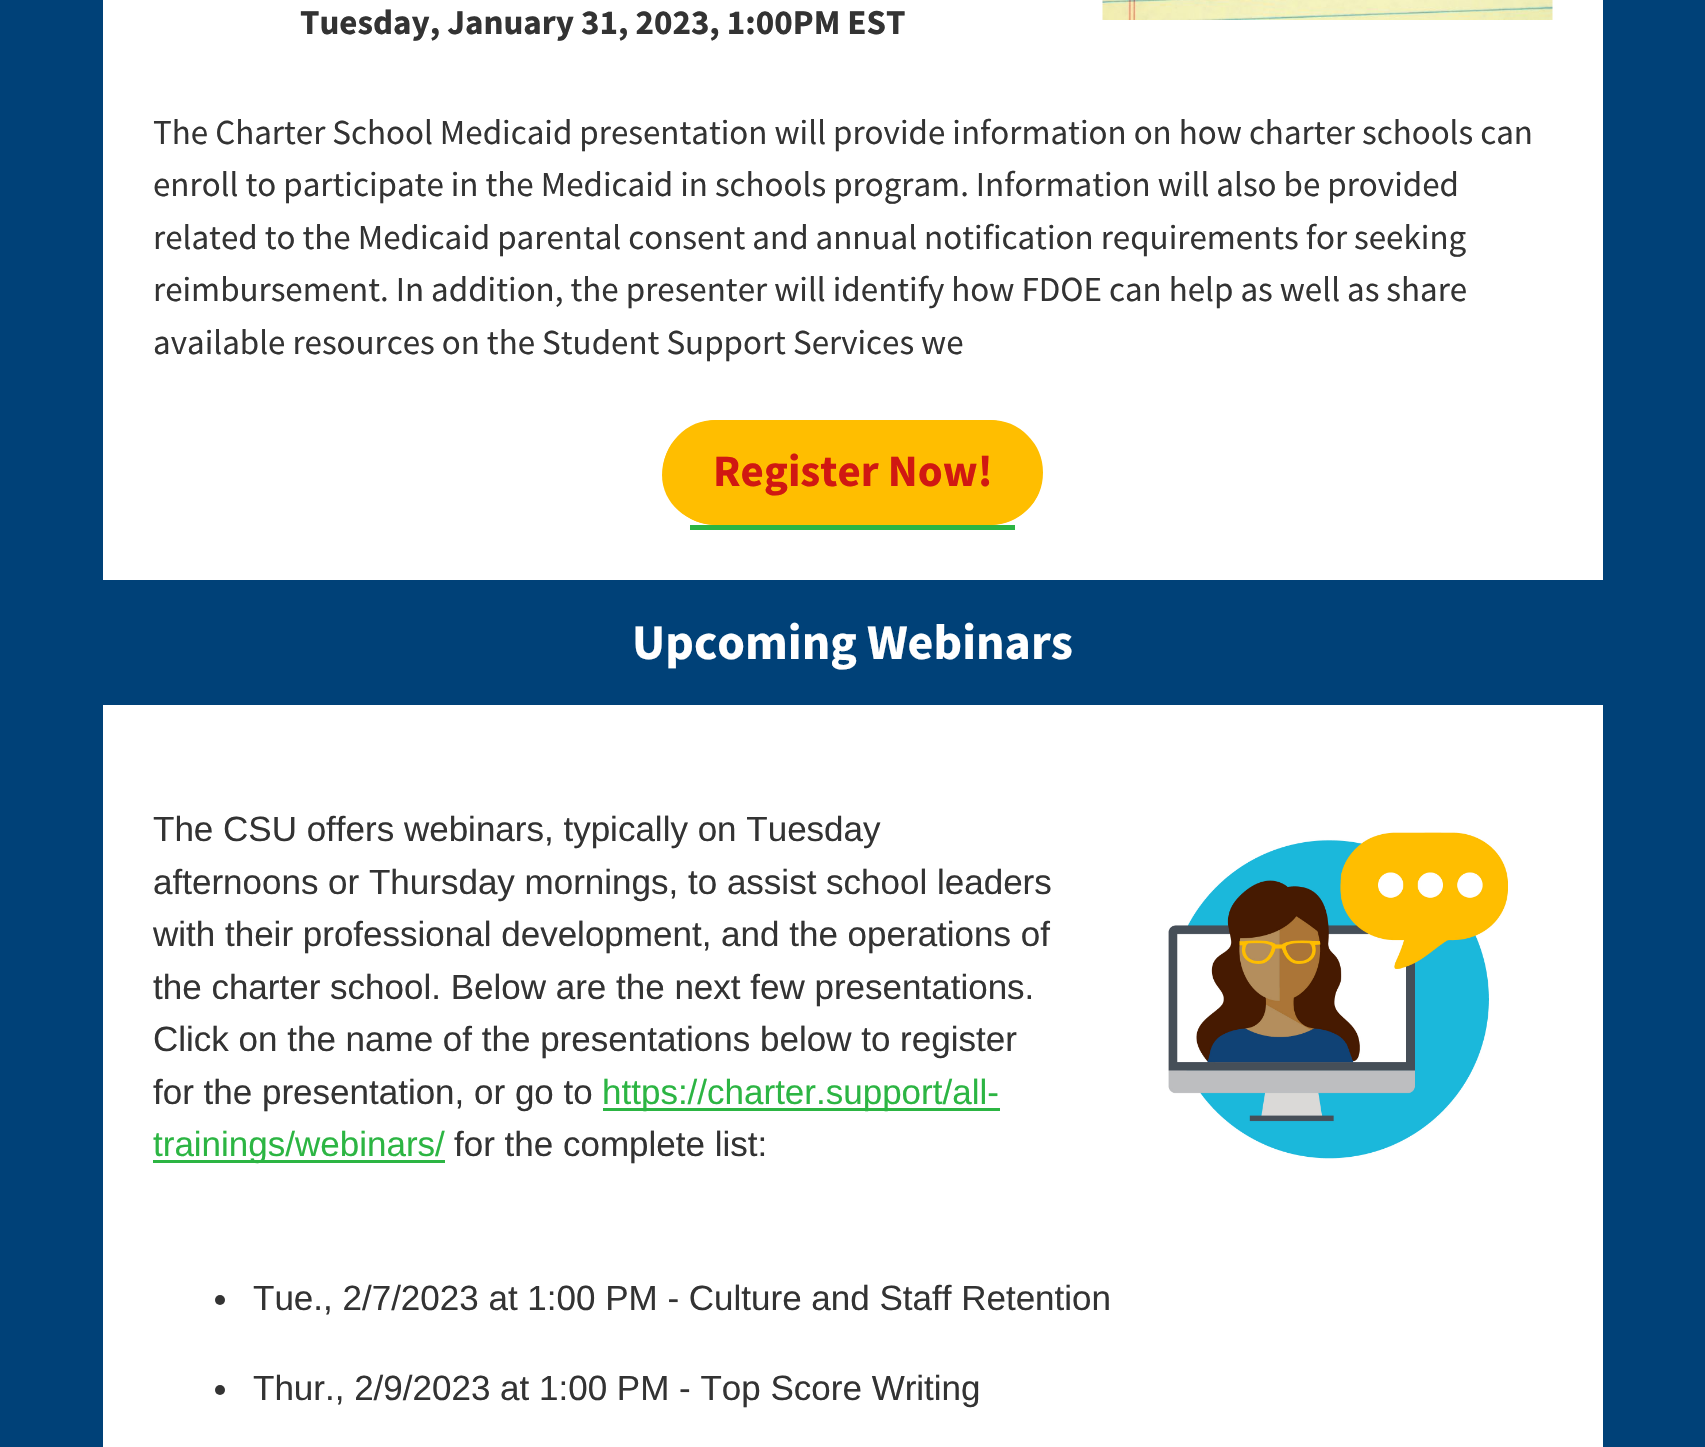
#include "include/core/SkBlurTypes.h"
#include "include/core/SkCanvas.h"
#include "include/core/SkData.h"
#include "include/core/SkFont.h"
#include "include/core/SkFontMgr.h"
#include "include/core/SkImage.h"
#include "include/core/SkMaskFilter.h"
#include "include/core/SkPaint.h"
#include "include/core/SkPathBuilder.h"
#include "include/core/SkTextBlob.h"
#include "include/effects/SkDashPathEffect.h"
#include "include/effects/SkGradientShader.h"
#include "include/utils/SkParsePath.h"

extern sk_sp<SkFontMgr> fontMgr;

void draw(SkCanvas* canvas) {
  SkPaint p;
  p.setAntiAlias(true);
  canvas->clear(SkColorSetRGB(0, 65, 120));
  p.setColor(SK_ColorWHITE);
  canvas->drawRect(SkRect::MakeLTRB(103, 0, 1603, 1447), p);
  canvas->drawImageRect(SkImages::DeferredFromEncodedData(SkData::MakeFromFileName("images/1.png")), SkRect::MakeLTRB(1102, 0, 1553, 20), SkSamplingOptions());
  p.setColor(SkColorSetRGB(255, 190, 0));
  canvas->drawPath(SkPathBuilder().moveTo(718, 420).lineTo(988, 420).cubicTo(1018, 420, 1042, 445, 1042, 475).cubicTo(1042, 503, 1018, 525, 988, 525).lineTo(718, 525).cubicTo(687, 525, 662, 503, 662, 475).cubicTo(662, 445, 687, 420, 718, 420).close().detach(), p);
  p.setColor(SkColorSetRGB(44, 181, 67));
  canvas->drawRect(SkRect::MakeLTRB(690, 525, 1015, 530), p);
  p.setStyle(SkPaint::kStroke_Style);
  p.setStrokeWidth(25);
  p.setColor(SkColorSetRGB(255, 190, 0));
  canvas->drawRoundRect(SkRect::MakeLTRB(675.5f, 432.5f, 1030.5f, 512.5f), 40, 40, p);
  p.setStyle(SkPaint::kFill_Style);
  p.setColor(SkColorSetRGB(0, 65, 120));
  canvas->drawRect(SkRect::MakeLTRB(103, 580, 1603, 705), p);
  p.setColor(SkColorSetRGB(44, 181, 67));
  canvas->drawRect(SkRect::MakeLTRB(603, 1108, 1000, 1111), p);
  canvas->drawRect(SkRect::MakeLTRB(153, 1160, 445, 1163), p);
  canvas->drawImageRect(SkImages::DeferredFromEncodedData(SkData::MakeFromFileName("images/2.png")), SkRect::MakeLTRB(1168, 832, 1508, 1159), SkSamplingOptions());
  p.setColor(SkColorSetRGB(51, 51, 51));
  canvas->drawCircle(220, 1300, 5, p);
  canvas->drawCircle(220, 1390, 5, p);
  SkFont font1(fontMgr->matchFamilyStyle("Source Sans Pro", SkFontStyle::Bold()), 35);
  font1.setSubpixel(true);
  canvas->drawString("Tuesday, January 31, 2023, 1:00PM EST", 300, 34, font1, p);
  SkFont font2(fontMgr->matchFamilyStyle("Source Sans Pro", SkFontStyle::Normal()), 35);
  font2.setSubpixel(true);
  canvas->drawString("The Charter School Medicaid presentation will provide information on how charter schools can", 153, 144, font2, p);
  canvas->drawString("enroll to participate in the Medicaid in schools program. Information will also be provided", 153, 196, font2, p);
  canvas->drawString("related to the Medicaid parental consent and annual notification requirements for seeking", 153, 249, font2, p);
  canvas->drawString("reimbursement. In addition, the presenter will identify how FDOE can help as well as share", 153, 301, font2, p);
  canvas->drawString("available resources on the Student Support Services we", 153, 354, font2, p);
  SkFont font3(fontMgr->matchFamilyStyle("Source Sans Pro", SkFontStyle::Bold()), 45);
  font3.setSubpixel(true);
  p.setColor(SkColorSetRGB(208, 24, 18));
  canvas->drawString("Register Now!", 713, 486, font3, p);
  SkFont font4(fontMgr->matchFamilyStyle("Source Sans Pro", SkFontStyle::Bold()), 50);
  font4.setSubpixel(true);
  p.setColor(SK_ColorWHITE);
  canvas->drawString("Upcoming Webinars", 632, 659, font4, p);
  SkFont font5(fontMgr->matchFamilyStyle("Liberation Sans", SkFontStyle::Normal()), 35);
  font5.setSubpixel(true);
  p.setColor(SkColorSetRGB(51, 51, 51));
  canvas->drawString("The CSU offers webinars, typically on Tuesday", 153, 841, font5, p);
  canvas->drawString("afternoons or Thursday mornings, to assist school leaders", 153, 894, font5, p);
  canvas->drawString("with their professional development, and the operations of", 153, 946, font5, p);
  canvas->drawString("the charter school. Below are the next few presentations.", 153, 999, font5, p);
  canvas->drawString("Click on the name of the presentations below to register", 153, 1051, font5, p);
  canvas->drawString("for the presentation, or go to", 153, 1104, font5, p);
  p.setColor(SkColorSetRGB(44, 181, 67));
  canvas->drawString("https://charter.support/all-", 602, 1104, font5, p);
  canvas->drawString("trainings/webinars/", 153, 1156, font5, p);
  p.setColor(SkColorSetRGB(51, 51, 51));
  canvas->drawString("for the complete list:", 454, 1156, font5, p);
  canvas->drawString("Tue., 2/7/2023 at 1:00 PM - Culture and Staff Retention", 253, 1310, font5, p);
  canvas->drawString("Thur., 2/9/2023 at 1:00 PM - Top Score Writing", 253, 1400, font5, p);
}
